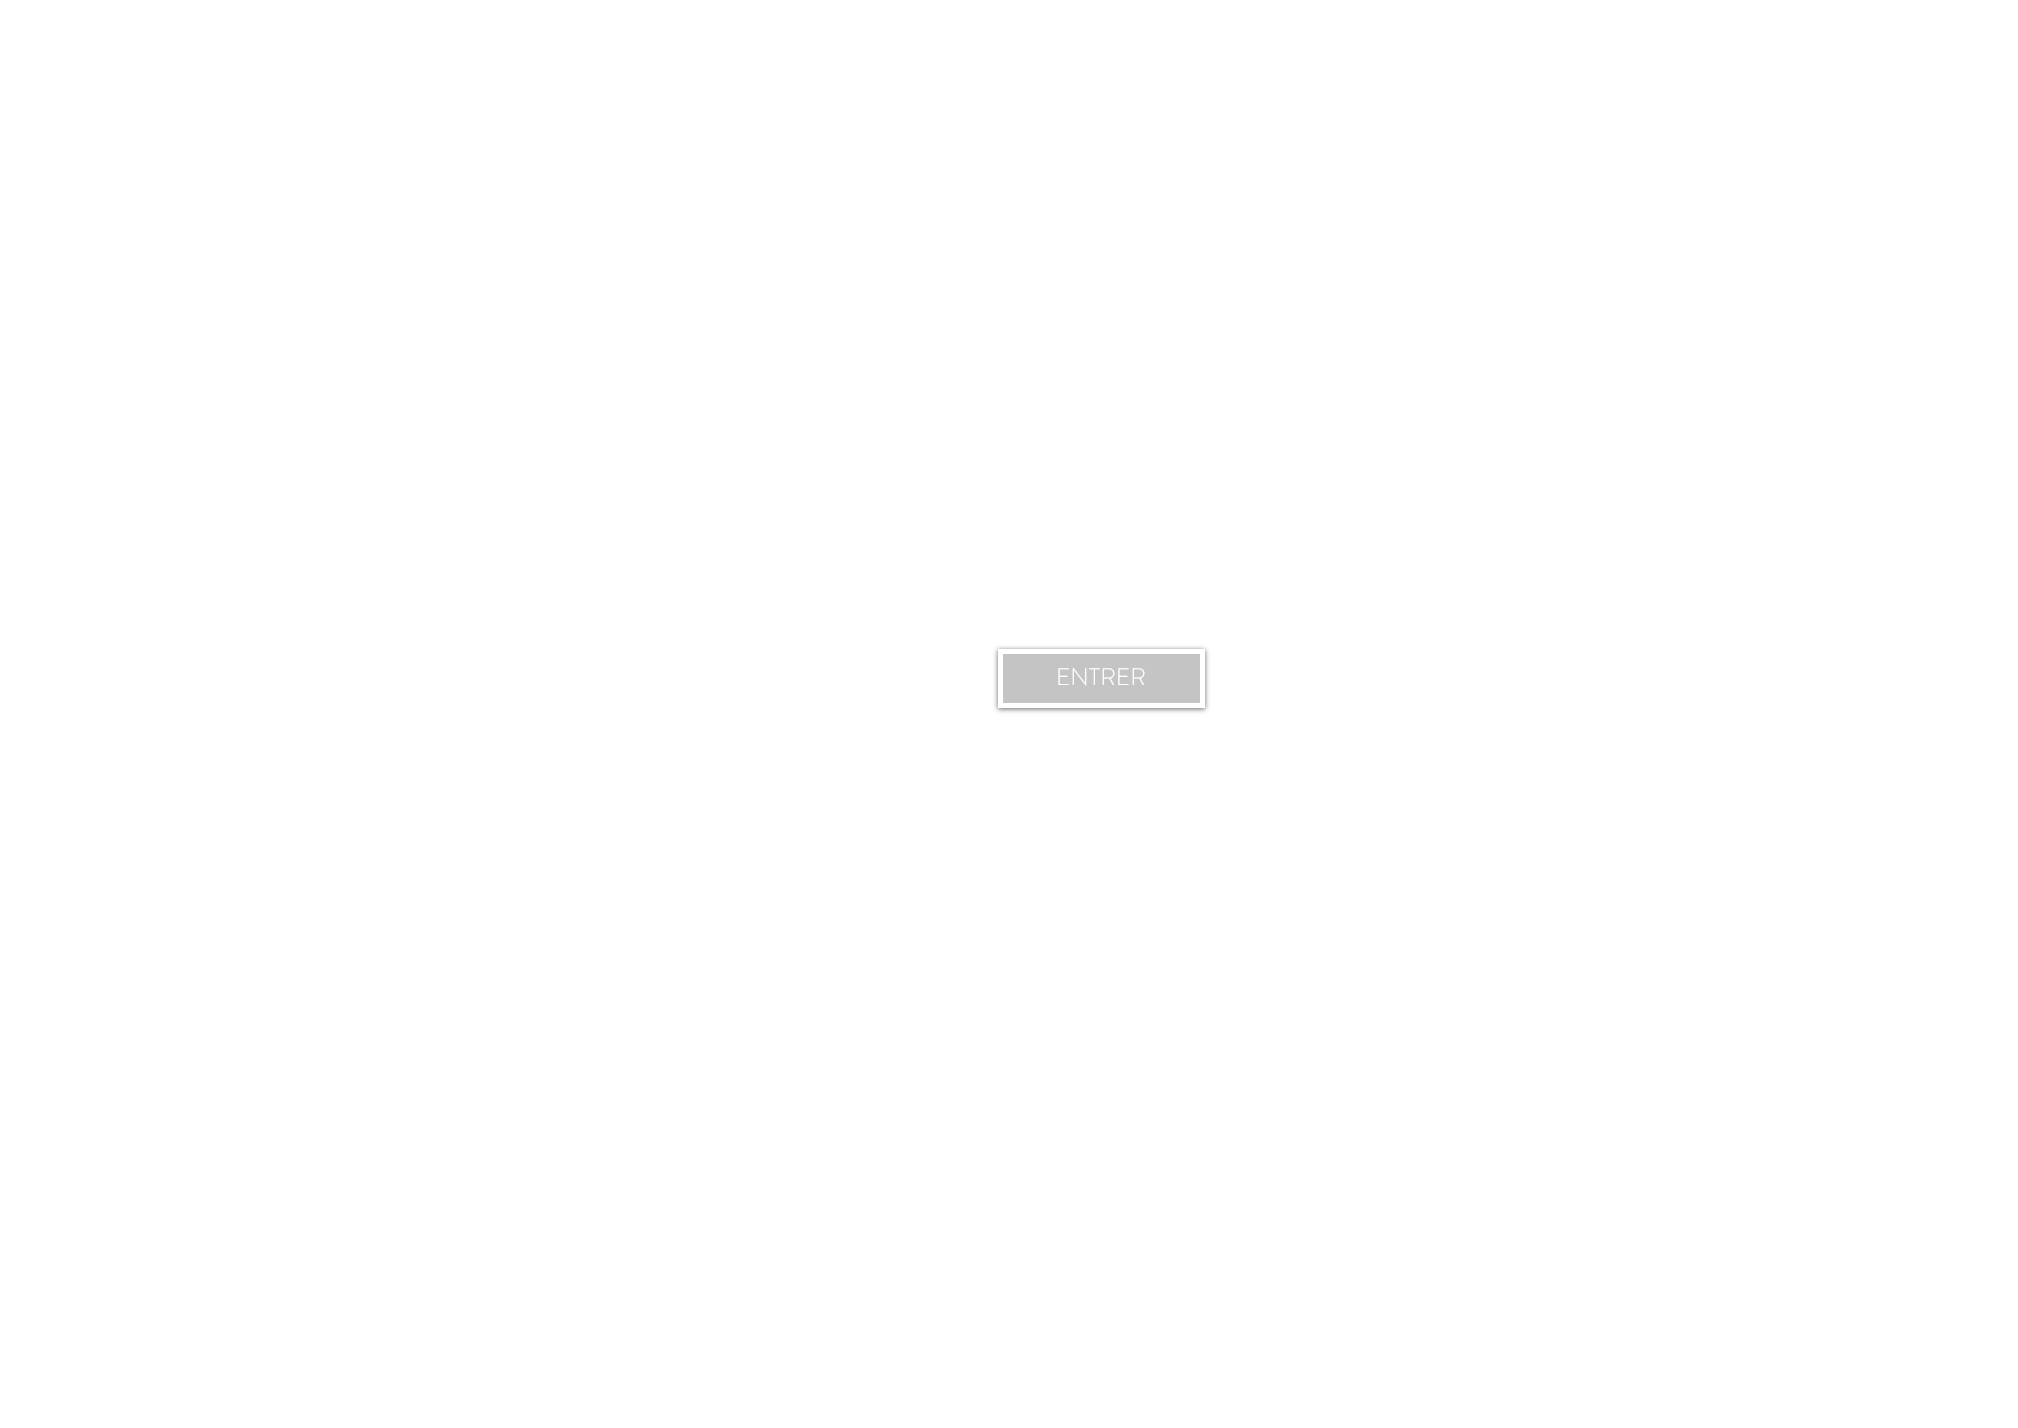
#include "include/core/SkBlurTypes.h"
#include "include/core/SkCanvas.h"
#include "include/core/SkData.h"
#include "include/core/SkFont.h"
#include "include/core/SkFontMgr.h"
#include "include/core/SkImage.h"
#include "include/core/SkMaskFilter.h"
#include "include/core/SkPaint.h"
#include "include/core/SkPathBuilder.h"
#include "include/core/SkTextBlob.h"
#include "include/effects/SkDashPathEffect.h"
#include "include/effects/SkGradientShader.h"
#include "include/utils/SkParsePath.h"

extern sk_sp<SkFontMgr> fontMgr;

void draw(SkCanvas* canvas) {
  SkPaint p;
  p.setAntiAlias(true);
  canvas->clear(SK_ColorWHITE);
  canvas->save();
  canvas->clipPath(SkPathBuilder(SkPathFillType::kEvenOdd).moveTo(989, 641).lineTo(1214, 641).lineTo(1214, 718).lineTo(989, 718).close().moveTo(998, 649).lineTo(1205, 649).lineTo(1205, 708).lineTo(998, 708).close().detach(), true);
  p.setColor(SkColorSetARGB(153, 0, 0, 0));
  p.setMaskFilter(SkMaskFilter::MakeBlur(kNormal_SkBlurStyle, 2.5f));
  canvas->drawRect(SkRect::MakeLTRB(998, 650, 1205, 709), p);
  p.setMaskFilter(nullptr);
  canvas->restore();
  p.setColor(SkColorSetARGB(107, 114, 114, 114));
  canvas->drawRect(SkRect::MakeLTRB(1000.5f, 651.5f, 1202.5f, 705.5f), p);
  p.setStyle(SkPaint::kStroke_Style);
  p.setStrokeWidth(5);
  p.setColor(SK_ColorWHITE);
  canvas->drawRect(SkRect::MakeLTRB(1000.5f, 651.5f, 1202.5f, 705.5f), p);
  SkFont font1(fontMgr->matchFamilyStyle("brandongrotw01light", SkFontStyle(300, SkFontStyle::kNormal_Width, SkFontStyle::kUpright_Slant)), 24);
  font1.setSubpixel(true);
  p.setStyle(SkPaint::kFill_Style);
  canvas->drawString("ENTRER", 1056, 685, font1, p);
}
